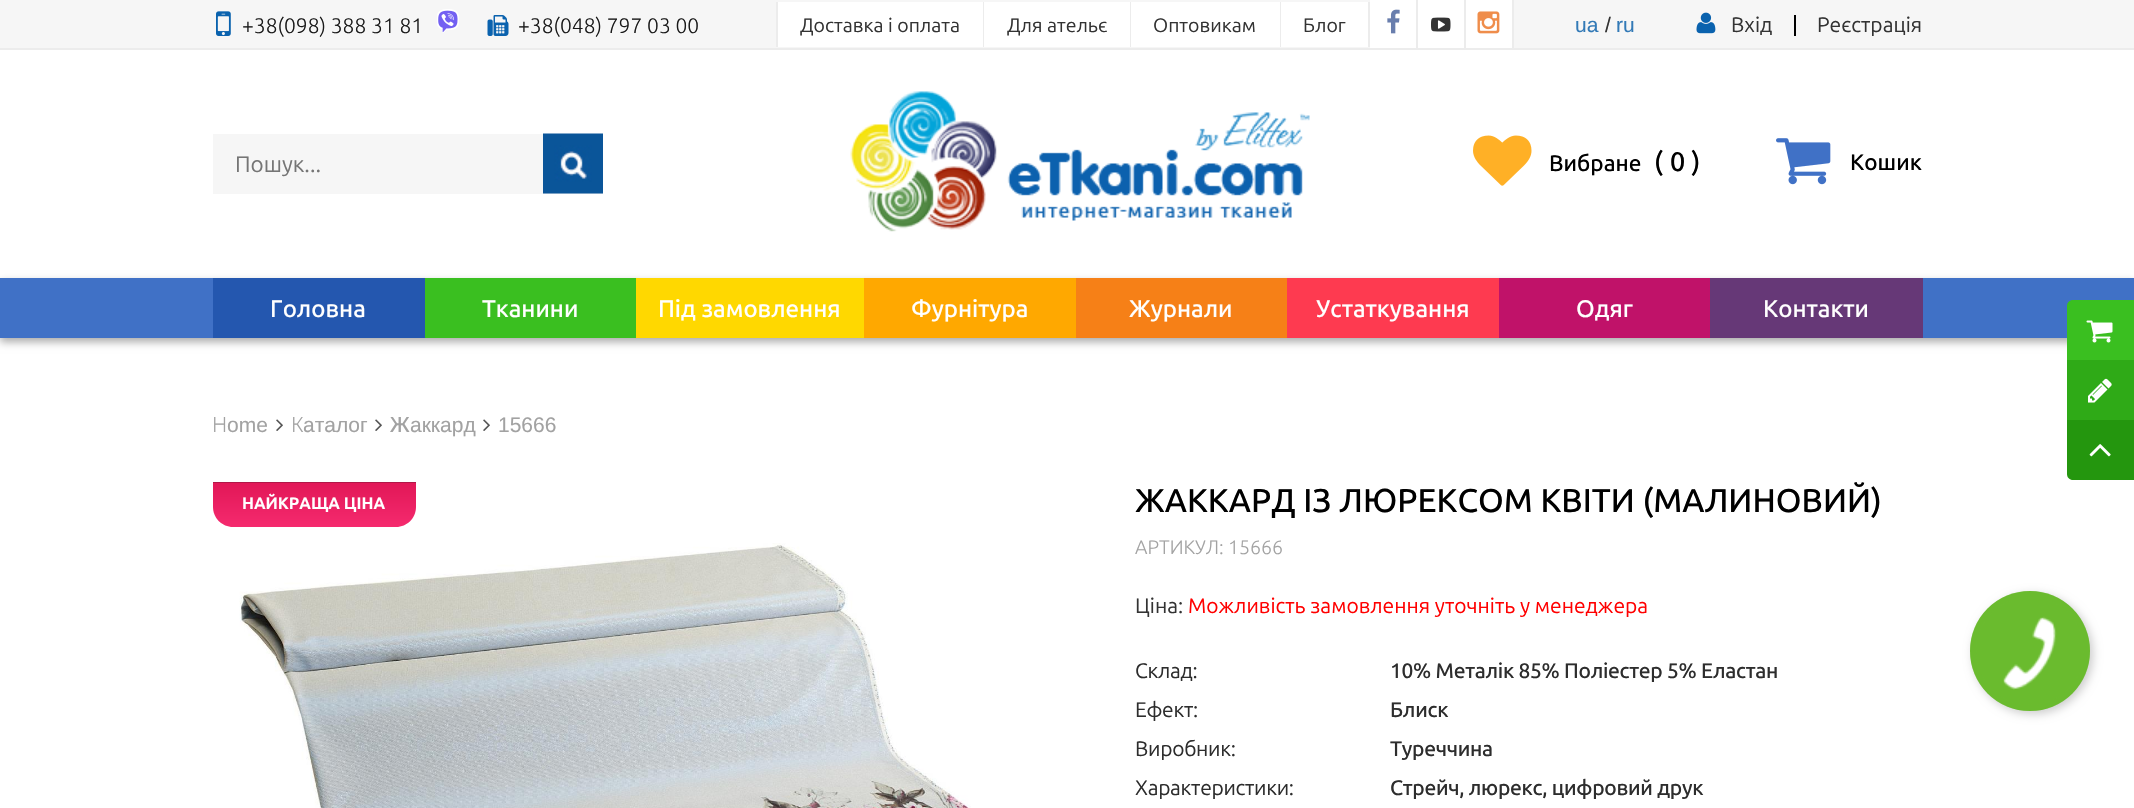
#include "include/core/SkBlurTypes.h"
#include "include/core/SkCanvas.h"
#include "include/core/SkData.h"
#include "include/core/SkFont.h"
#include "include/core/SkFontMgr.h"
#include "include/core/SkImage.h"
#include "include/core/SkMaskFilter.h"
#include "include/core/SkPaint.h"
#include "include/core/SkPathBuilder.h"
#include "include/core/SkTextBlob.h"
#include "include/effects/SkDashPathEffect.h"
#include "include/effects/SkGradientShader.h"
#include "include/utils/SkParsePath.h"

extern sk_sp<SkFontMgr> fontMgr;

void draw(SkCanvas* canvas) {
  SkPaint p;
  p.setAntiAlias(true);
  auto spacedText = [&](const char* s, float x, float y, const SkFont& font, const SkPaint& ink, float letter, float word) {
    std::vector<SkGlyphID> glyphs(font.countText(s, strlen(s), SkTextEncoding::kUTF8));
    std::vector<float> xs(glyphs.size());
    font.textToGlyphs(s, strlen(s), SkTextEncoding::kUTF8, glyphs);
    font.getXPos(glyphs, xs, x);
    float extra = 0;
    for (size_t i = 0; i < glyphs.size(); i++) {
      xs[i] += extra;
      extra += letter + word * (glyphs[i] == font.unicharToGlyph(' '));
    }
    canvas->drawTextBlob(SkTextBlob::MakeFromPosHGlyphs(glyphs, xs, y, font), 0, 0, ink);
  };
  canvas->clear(SK_ColorWHITE);
  p.setColor(SkColorSetRGB(246, 246, 246));
  canvas->drawRect(SkRect::MakeLTRB(0, 0, 2134, 48), p);
  p.setColor(SkColorSetRGB(236, 236, 236));
  canvas->drawRect(SkRect::MakeLTRB(0, 48, 2134, 50), p);
  canvas->drawImageRect(SkImages::DeferredFromEncodedData(SkData::MakeFromFileName("images/1.png")), SkRect::MakeLTRB(216, 11, 231, 36), SkSamplingOptions());
  canvas->drawImageRect(SkImages::DeferredFromEncodedData(SkData::MakeFromFileName("images/2.png")), SkRect::MakeLTRB(437, 9, 459, 33), SkSamplingOptions());
  canvas->drawImageRect(SkImages::DeferredFromEncodedData(SkData::MakeFromFileName("images/3.png")), SkRect::MakeLTRB(487, 15, 509, 36), SkSamplingOptions());
  p.setColor(SK_ColorWHITE);
  canvas->drawRect(SkRect::MakeLTRB(778, 2, 983, 47), p);
  p.setColor(SkColorSetRGB(236, 236, 236));
  canvas->drawRect(SkRect::MakeLTRB(983, 2, 984, 47), p);
  canvas->drawRect(SkRect::MakeLTRB(776, 2, 778, 47), p);
  p.setColor(SK_ColorWHITE);
  canvas->drawRect(SkRect::MakeLTRB(984, 2, 1130, 47), p);
  p.setColor(SkColorSetRGB(236, 236, 236));
  canvas->drawRect(SkRect::MakeLTRB(1130, 2, 1131, 47), p);
  p.setColor(SK_ColorWHITE);
  canvas->drawRect(SkRect::MakeLTRB(1131, 2, 1280, 47), p);
  p.setColor(SkColorSetRGB(236, 236, 236));
  canvas->drawRect(SkRect::MakeLTRB(1280, 2, 1281, 47), p);
  p.setColor(SK_ColorWHITE);
  canvas->drawRect(SkRect::MakeLTRB(1281, 2, 1368, 47), p);
  p.setColor(SkColorSetRGB(236, 236, 236));
  canvas->drawRect(SkRect::MakeLTRB(1368, 2, 1370, 47), p);
  p.setColor(SK_ColorWHITE);
  canvas->drawRect(SkRect::MakeLTRB(1370, 0, 1416, 48), p);
  p.setColor(SkColorSetRGB(236, 236, 236));
  canvas->drawRect(SkRect::MakeLTRB(1416, 0, 1418, 48), p);
  canvas->drawImageRect(SkImages::DeferredFromEncodedData(SkData::MakeFromFileName("images/4.png")), SkRect::MakeLTRB(1387, 9, 1400, 34), SkSamplingOptions());
  p.setColor(SK_ColorWHITE);
  canvas->drawRect(SkRect::MakeLTRB(1418, 0, 1464, 48), p);
  p.setColor(SkColorSetRGB(236, 236, 236));
  canvas->drawRect(SkRect::MakeLTRB(1464, 0, 1466, 48), p);
  canvas->drawImageRect(SkImages::DeferredFromEncodedData(SkData::MakeFromFileName("images/5.png")), SkRect::MakeLTRB(1431, 17, 1451, 32), SkSamplingOptions());
  p.setColor(SK_ColorWHITE);
  canvas->drawRect(SkRect::MakeLTRB(1466, 0, 1512, 48), p);
  p.setColor(SkColorSetRGB(236, 236, 236));
  canvas->drawRect(SkRect::MakeLTRB(1512, 0, 1514, 48), p);
  canvas->drawImageRect(SkImages::DeferredFromEncodedData(SkData::MakeFromFileName("images/6.png")), SkRect::MakeLTRB(1477, 11, 1500, 34), SkSamplingOptions());
  canvas->drawImageRect(SkImages::DeferredFromEncodedData(SkData::MakeFromFileName("images/7.png")), SkRect::MakeLTRB(1696, 12, 1716, 34), SkSamplingOptions());
  p.setColor(SK_ColorBLACK);
  canvas->drawRect(SkRect::MakeLTRB(1794, 15, 1796, 36), p);
  p.setColor(SkColorSetRGB(246, 246, 246));
  canvas->drawRect(SkRect::MakeLTRB(213, 134, 543, 194), p);
  p.setColor(SkColorSetRGB(239, 239, 239));
  canvas->drawRect(SkRect::MakeLTRB(543, 193, 603, 194), p);
  canvas->drawImageRect(SkImages::DeferredFromEncodedData(SkData::MakeFromFileName("images/8.png")), SkRect::MakeLTRB(543, 133, 603, 194), SkSamplingOptions());
  canvas->drawImageRect(SkImages::DeferredFromEncodedData(SkData::MakeFromFileName("images/9.png")), SkRect::MakeLTRB(850, 91, 1310, 232), SkSamplingOptions());
  canvas->drawImageRect(SkImages::DeferredFromEncodedData(SkData::MakeFromFileName("images/10.png")), SkRect::MakeLTRB(1473, 135, 1532, 186), SkSamplingOptions());
  canvas->drawImageRect(SkImages::DeferredFromEncodedData(SkData::MakeFromFileName("images/11.png")), SkRect::MakeLTRB(1776, 138, 1831, 185), SkSamplingOptions());
  p.setColor(SkColorSetARGB(84, 0, 0, 0));
  p.setMaskFilter(SkMaskFilter::MakeBlur(kNormal_SkBlurStyle, 4));
  canvas->drawRect(SkRect::MakeLTRB(0, 282, 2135, 342), p);
  p.setMaskFilter(nullptr);
  p.setColor(SkColorSetRGB(64, 113, 198));
  canvas->drawRect(SkRect::MakeLTRB(0, 278, 2134, 338), p);
  p.setColor(SkColorSetRGB(36, 87, 175));
  canvas->drawRect(SkRect::MakeLTRB(213, 278, 425, 338), p);
  p.setColor(SkColorSetRGB(58, 191, 32));
  canvas->drawRect(SkRect::MakeLTRB(425, 278, 636, 338), p);
  p.setColor(SkColorSetRGB(255, 216, 0));
  canvas->drawRect(SkRect::MakeLTRB(636, 278, 864, 338), p);
  p.setColor(SkColorSetRGB(255, 168, 0));
  canvas->drawRect(SkRect::MakeLTRB(864, 278, 1076, 338), p);
  p.setColor(SkColorSetRGB(246, 128, 23));
  canvas->drawRect(SkRect::MakeLTRB(1076, 278, 1287, 338), p);
  p.setColor(SkColorSetRGB(254, 58, 80));
  canvas->drawRect(SkRect::MakeLTRB(1287, 278, 1499, 338), p);
  p.setColor(SkColorSetRGB(192, 18, 105));
  canvas->drawRect(SkRect::MakeLTRB(1499, 278, 1710, 338), p);
  p.setColor(SkColorSetRGB(102, 56, 119));
  canvas->drawRect(SkRect::MakeLTRB(1710, 278, 1923, 338), p);
  p.setColor(SkColorSetRGB(58, 191, 32));
  canvas->drawPath(SkPathBuilder().moveTo(2073, 300).lineTo(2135, 300).lineTo(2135, 360).lineTo(2067, 360).lineTo(2067, 306).cubicTo(2067, 302.5f, 2069.5f, 300, 2073, 300).close().detach(), p);
  canvas->drawImageRect(SkImages::DeferredFromEncodedData(SkData::MakeFromFileName("images/12.png")), SkRect::MakeLTRB(2086, 320, 2113, 343), SkSamplingOptions());
  p.setColor(SkColorSetRGB(47, 170, 23));
  canvas->drawRect(SkRect::MakeLTRB(2067, 360, 2134, 420), p);
  canvas->drawImageRect(SkImages::DeferredFromEncodedData(SkData::MakeFromFileName("images/13.png")), SkRect::MakeLTRB(2088, 378, 2112, 403), SkSamplingOptions());
  p.setColor(SkColorSetRGB(36, 150, 14));
  canvas->drawPath(SkPathBuilder().moveTo(2067, 420).lineTo(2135, 420).lineTo(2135, 480).lineTo(2073, 480).cubicTo(2069.5f, 480, 2067, 477.5f, 2067, 474).close().detach(), p);
  canvas->drawImageRect(SkImages::DeferredFromEncodedData(SkData::MakeFromFileName("images/14.png")), SkRect::MakeLTRB(2089, 444, 2111, 457), SkSamplingOptions());
  canvas->drawImageRect(SkImages::DeferredFromEncodedData(SkData::MakeFromFileName("images/15.png")), SkRect::MakeLTRB(276, 419, 283, 431), SkSamplingOptions());
  canvas->drawImageRect(SkImages::DeferredFromEncodedData(SkData::MakeFromFileName("images/15.png")), SkRect::MakeLTRB(375, 419, 382, 431), SkSamplingOptions());
  canvas->drawImageRect(SkImages::DeferredFromEncodedData(SkData::MakeFromFileName("images/15.png")), SkRect::MakeLTRB(483, 419, 490, 431), SkSamplingOptions());
  {
    const SkColor colors[] = {SkColorSetRGB(225, 23, 87), SkColorSetRGB(245, 42, 110)};
    const float stops[] = {0, 1};
    const SkPoint ends[] = {{314, 482}, {314, 527}};
    p.setShader(SkGradientShader::MakeLinear(ends, colors, stops, 2, SkTileMode::kClamp));
    p.setAlpha(255);
  }
  canvas->drawPath(SkPathBuilder().moveTo(213, 482).lineTo(416, 482).lineTo(416, 507).cubicTo(416, 518, 407, 527, 396, 527).lineTo(233, 527).cubicTo(222, 527, 213, 518, 213, 507).close().detach(), p);
  p.setShader(nullptr);
  p.setColor(SkColorSetRGB(177, 23, 72));
  canvas->drawRect(SkRect::MakeLTRB(213, 482, 416, 483), p);
  canvas->drawImageRect(SkImages::DeferredFromEncodedData(SkData::MakeFromFileName("images/16.png")), SkRect::MakeLTRB(239, 543, 971, 808), SkSamplingOptions());
  p.setColor(SkColorSetARGB(51, 0, 0, 0));
  p.setMaskFilter(SkMaskFilter::MakeBlur(kNormal_SkBlurStyle, 5));
  canvas->drawRoundRect(SkRect::MakeLTRB(1973, 594, 2093, 714), 60, 60, p);
  p.setMaskFilter(nullptr);
  p.setColor(SkColorSetRGB(106, 187, 46));
  canvas->drawCircle(2030, 651, 60, p);
  p.setStyle(SkPaint::kStroke_Style);
  p.setStrokeWidth(6);
  p.setColor(SkColorSetARGB(77, 106, 187, 46));
  canvas->drawCircle(2030, 651, 57, p);
  canvas->drawImageRect(SkImages::DeferredFromEncodedData(SkData::MakeFromFileName("images/17.png")), SkRect::MakeLTRB(2003, 616, 2057, 690), SkSamplingOptions());
  SkFont font1(fontMgr->matchFamilyStyle("Ubuntu", SkFontStyle(300, SkFontStyle::kNormal_Width, SkFontStyle::kUpright_Slant)), 21);
  font1.setSubpixel(true);
  p.setStyle(SkPaint::kFill_Style);
  p.setColor(SkColorSetRGB(25, 25, 25));
  canvas->drawString("+38(098) 388 31 81", 242, 33, font1, p);
  canvas->drawString("+38(048) 797 03 00", 518, 33, font1, p);
  SkFont font2(fontMgr->matchFamilyStyle("Ubuntu", SkFontStyle::Normal()), 19.5f);
  font2.setSubpixel(true);
  p.setColor(SkColorSetRGB(51, 51, 51));
  canvas->drawString("Доставка і оплата", 800, 32, font2, p);
  canvas->drawString("Для ательє", 1007, 32, font2, p);
  canvas->drawString("Оптовикам", 1153, 32, font2, p);
  canvas->drawString("Блог", 1303, 32, font2, p);
  SkFont font3(fontMgr->matchFamilyStyle("Liberation Sans", SkFontStyle::Normal()), 21);
  font3.setSubpixel(true);
  p.setColor(SkColorSetRGB(51, 122, 183));
  canvas->drawString("ua", 1575, 32, font3, p);
  p.setColor(SkColorSetRGB(51, 51, 51));
  canvas->drawString("/", 1605, 32, font3, p);
  p.setColor(SkColorSetRGB(51, 122, 183));
  canvas->drawString("ru", 1616, 32, font3, p);
  SkFont font4(fontMgr->matchFamilyStyle("Ubuntu", SkFontStyle::Normal()), 21);
  font4.setSubpixel(true);
  p.setColor(SkColorSetRGB(51, 51, 51));
  canvas->drawString("Вхід", 1731, 32, font4, p);
  canvas->drawString("Реєстрація", 1817, 32, font4, p);
  SkFont font5(fontMgr->matchFamilyStyle("Ubuntu", SkFontStyle::Normal()), 22.5f);
  font5.setSubpixel(true);
  p.setColor(SkColorSetRGB(117, 117, 117));
  canvas->drawString("Пошук...", 235, 172, font5, p);
  SkFont font6(fontMgr->matchFamilyStyle("Ubuntu", SkFontStyle(500, SkFontStyle::kNormal_Width, SkFontStyle::kUpright_Slant)), 22.5f);
  font6.setSubpixel(true);
  p.setColor(SK_ColorBLACK);
  canvas->drawString("Вибране", 1549, 171, font6, p);
  SkFont font7(fontMgr->matchFamilyStyle("Ubuntu", SkFontStyle(500, SkFontStyle::kNormal_Width, SkFontStyle::kUpright_Slant)), 27);
  font7.setSubpixel(true);
  canvas->drawString("(", 1654, 171, font7, p);
  canvas->drawString("0 )", 1670, 171, font7, p);
  canvas->drawString("Кошик", 1850, 170, font6, p);
  SkFont font8(fontMgr->matchFamilyStyle("Ubuntu", SkFontStyle(500, SkFontStyle::kNormal_Width, SkFontStyle::kUpright_Slant)), 24);
  font8.setSubpixel(true);
  p.setColor(SK_ColorWHITE);
  canvas->drawString("Головна", 270, 317, font8, p);
  canvas->drawString("Тканини", 482, 317, font8, p);
  canvas->drawString("Під замовлення", 658, 317, font8, p);
  canvas->drawString("Фурнітура", 911, 317, font8, p);
  canvas->drawString("Журнали", 1129, 317, font8, p);
  canvas->drawString("Устаткування", 1316, 317, font8, p);
  canvas->drawString("Одяг", 1576, 317, font8, p);
  canvas->drawString("Контакти", 1763, 317, font8, p);
  SkFont font9(fontMgr->matchFamilyStyle("Noto Sans", SkFontStyle(300, SkFontStyle::kNormal_Width, SkFontStyle::kUpright_Slant)), 21);
  font9.setSubpixel(true);
  p.setColor(SkColorSetRGB(162, 162, 162));
  canvas->drawString("H", 212, 432, font9, p);
  canvas->drawString("ome", 227, 432, font3, p);
  canvas->drawString("К", 291, 432, font9, p);
  canvas->drawString("аталог", 303, 432, font3, p);
  SkFont font10(fontMgr->matchFamilyStyle("Noto Sans", SkFontStyle(500, SkFontStyle::kNormal_Width, SkFontStyle::kUpright_Slant)), 21);
  font10.setSubpixel(true);
  canvas->drawString("Ж", 390, 432, font10, p);
  canvas->drawString("аккард", 410, 432, font3, p);
  canvas->drawString("15666", 498, 432, font3, p);
  SkFont font11(fontMgr->matchFamilyStyle("Ubuntu", SkFontStyle::Bold()), 16.5f);
  font11.setSubpixel(true);
  p.setColor(SK_ColorWHITE);
  canvas->drawString("НАЙКРАЩА ЦІНА", 242, 509, font11, p);
  SkFont font12(fontMgr->matchFamilyStyle("Ubuntu", SkFontStyle(500, SkFontStyle::kNormal_Width, SkFontStyle::kUpright_Slant)), 33);
  font12.setSubpixel(true);
  p.setColor(SK_ColorBLACK);
  canvas->drawString("ЖАККАРД ІЗ ЛЮРЕКСОМ КВІТИ (МАЛИНОВИЙ)", 1135, 512, font12, p);
  SkFont font13(fontMgr->matchFamilyStyle("Ubuntu", SkFontStyle(300, SkFontStyle::kNormal_Width, SkFontStyle::kUpright_Slant)), 19.5f);
  font13.setSubpixel(true);
  p.setColor(SkColorSetRGB(162, 162, 162));
  canvas->drawString("АРТИКУЛ: 15666", 1135, 554, font13, p);
  p.setColor(SkColorSetRGB(51, 51, 51));
  canvas->drawString("Ціна:", 1135, 613, font4, p);
  p.setColor(SkColorSetRGB(255, 0, 0));
  canvas->drawString("Можливість замовлення уточніть у менеджера", 1188, 613, font4, p);
  p.setColor(SkColorSetRGB(45, 45, 45));
  spacedText("Cклад:", 1135, 678, font4, p, -0.3f, 0);
  SkFont font14(fontMgr->matchFamilyStyle("Ubuntu", SkFontStyle(500, SkFontStyle::kNormal_Width, SkFontStyle::kUpright_Slant)), 21);
  font14.setSubpixel(true);
  spacedText("10% Металік 85% Поліестер 5% Еластан", 1390, 678, font14, p, -0.3f, 0);
  spacedText("Ефект:", 1135, 717, font4, p, -0.3f, 0);
  spacedText("Блиск", 1390, 717, font14, p, -0.3f, 0);
  spacedText("Виробник:", 1135, 756, font4, p, -0.3f, 0);
  spacedText("Туреччина", 1390, 756, font14, p, -0.3f, 0);
  spacedText("Характеристики:", 1135, 795, font4, p, -0.3f, 0);
  spacedText("Стрейч, люрекс, цифровий друк", 1390, 795, font14, p, -0.3f, 0);
}
